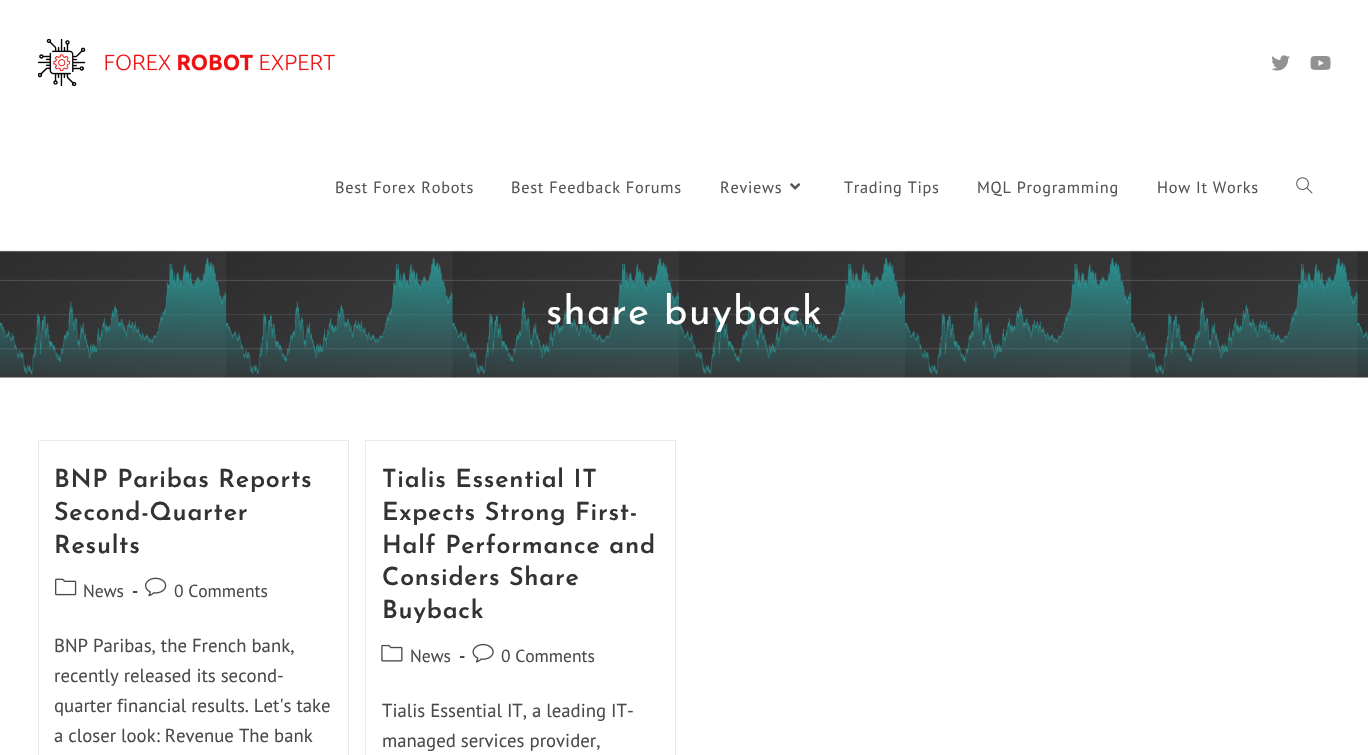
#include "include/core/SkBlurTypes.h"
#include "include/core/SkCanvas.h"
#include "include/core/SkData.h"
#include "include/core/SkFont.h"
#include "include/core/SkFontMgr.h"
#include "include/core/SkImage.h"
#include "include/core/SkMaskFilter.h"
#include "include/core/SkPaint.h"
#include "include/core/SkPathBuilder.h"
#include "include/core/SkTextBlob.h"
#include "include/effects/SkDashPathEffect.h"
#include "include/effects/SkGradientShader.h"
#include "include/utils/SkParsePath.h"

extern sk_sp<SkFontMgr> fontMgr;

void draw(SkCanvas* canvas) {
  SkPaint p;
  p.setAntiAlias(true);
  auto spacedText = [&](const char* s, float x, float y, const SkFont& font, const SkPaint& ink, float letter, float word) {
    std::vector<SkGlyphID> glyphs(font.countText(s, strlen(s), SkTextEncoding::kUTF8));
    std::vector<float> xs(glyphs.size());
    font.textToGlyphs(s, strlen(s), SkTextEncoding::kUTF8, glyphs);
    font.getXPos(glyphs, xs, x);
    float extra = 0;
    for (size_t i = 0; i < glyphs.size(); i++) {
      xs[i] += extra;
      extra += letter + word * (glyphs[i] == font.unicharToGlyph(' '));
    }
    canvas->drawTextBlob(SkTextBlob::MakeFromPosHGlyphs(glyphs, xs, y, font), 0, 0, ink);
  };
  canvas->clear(SK_ColorWHITE);
  p.setColor(SkColorSetRGB(241, 241, 241));
  canvas->drawRect(SkRect::MakeLTRB(0, 250, 1368, 251), p);
  canvas->drawImageRect(SkImages::DeferredFromEncodedData(SkData::MakeFromFileName("images/1.png")), SkRect::MakeLTRB(38, 39, 335, 86), SkSamplingOptions());
  canvas->drawImageRect(SkImages::DeferredFromEncodedData(SkData::MakeFromFileName("images/2.png")), SkRect::MakeLTRB(1271, 55, 1290, 71), SkSamplingOptions());
  canvas->drawImageRect(SkImages::DeferredFromEncodedData(SkData::MakeFromFileName("images/3.png")), SkRect::MakeLTRB(1310, 55, 1331, 70), SkSamplingOptions());
  canvas->drawImageRect(SkImages::DeferredFromEncodedData(SkData::MakeFromFileName("images/4.png")), SkRect::MakeLTRB(790, 183, 801, 190), SkSamplingOptions());
  canvas->drawImageRect(SkImages::DeferredFromEncodedData(SkData::MakeFromFileName("images/5.png")), SkRect::MakeLTRB(1296, 177, 1313, 194), SkSamplingOptions());
  p.setColor(SkColorSetRGB(245, 245, 245));
  canvas->drawRect(SkRect::MakeLTRB(0, 251, 1368, 378), p);
  canvas->drawImageRect(SkImages::DeferredFromEncodedData(SkData::MakeFromFileName("images/6.png")), SkRect::MakeLTRB(0, 251, 1368, 378), SkSamplingOptions());
  p.setStyle(SkPaint::kStroke_Style);
  p.setStrokeWidth(1);
  p.setColor(SkColorSetRGB(233, 233, 233));
  canvas->drawRect(SkRect::MakeLTRB(38.5f, 440.5f, 348.5f, 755.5f), p);
  canvas->drawImageRect(SkImages::DeferredFromEncodedData(SkData::MakeFromFileName("images/7.png")), SkRect::MakeLTRB(55, 578, 77, 596), SkSamplingOptions());
  canvas->drawImageRect(SkImages::DeferredFromEncodedData(SkData::MakeFromFileName("images/8.png")), SkRect::MakeLTRB(145, 577, 167, 597), SkSamplingOptions());
  canvas->drawRect(SkRect::MakeLTRB(365.5f, 440.5f, 675.5f, 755.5f), p);
  canvas->drawImageRect(SkImages::DeferredFromEncodedData(SkData::MakeFromFileName("images/9.png")), SkRect::MakeLTRB(381, 644, 403, 662), SkSamplingOptions());
  canvas->drawImageRect(SkImages::DeferredFromEncodedData(SkData::MakeFromFileName("images/10.png")), SkRect::MakeLTRB(472, 643, 494, 663), SkSamplingOptions());
  SkFont font1(fontMgr->matchFamilyStyle("PT Sans", SkFontStyle::Normal()), 16.25f);
  font1.setSubpixel(true);
  p.setStyle(SkPaint::kFill_Style);
  p.setColor(SkColorSetRGB(85, 85, 85));
  spacedText("Best Forex Robots", 335, 193, font1, p, 0.75f, 0);
  spacedText("Best Feedback Forums", 511, 193, font1, p, 0.75f, 0);
  spacedText("Reviews", 720, 193, font1, p, 0.75f, 0);
  spacedText("Trading Tips", 844, 193, font1, p, 0.75f, 0);
  spacedText("MQL Programming", 977, 193, font1, p, 0.75f, 0);
  spacedText("How It Works", 1157, 193, font1, p, 0.75f, 0);
  SkFont font2(fontMgr->matchFamilyStyle("Josefin Sans", SkFontStyle::Normal()), 40);
  font2.setSubpixel(true);
  p.setColor(SK_ColorWHITE);
  spacedText("share buyback", 546, 324, font2, p, 1.25f, 0);
  SkFont font3(fontMgr->matchFamilyStyle("Josefin Sans", SkFontStyle(600, SkFontStyle::kNormal_Width, SkFontStyle::kUpright_Slant)), 25);
  font3.setSubpixel(true);
  p.setColor(SkColorSetRGB(51, 51, 51));
  spacedText("BNP Paribas Reports", 54, 487, font3, p, 0.75f, 0);
  spacedText("Second-Quarter", 54, 520, font3, p, 0.75f, 0);
  spacedText("Results", 54, 553, font3, p, 0.75f, 0);
  SkFont font4(fontMgr->matchFamilyStyle("PT Sans", SkFontStyle::Normal()), 17.5f);
  font4.setSubpixel(true);
  p.setColor(SkColorSetRGB(74, 74, 74));
  canvas->drawString("News", 83, 597, font4, p);
  SkFont font5(fontMgr->matchFamilyStyle("PT Sans", SkFontStyle::Bold()), 17.5f);
  font5.setSubpixel(true);
  canvas->drawString("-", 132, 597, font5, p);
  canvas->drawString("0 Comments", 174, 597, font4, p);
  SkFont font6(fontMgr->matchFamilyStyle("PT Sans", SkFontStyle::Normal()), 18.75f);
  font6.setSubpixel(true);
  canvas->drawString("BNP Paribas, the French bank,", 54, 652, font6, p);
  canvas->drawString("recently released its second-", 54, 682, font6, p);
  canvas->drawString("quarter financial results. Let's take", 54, 712, font6, p);
  canvas->drawString("a closer look: Revenue The bank", 54, 742, font6, p);
  p.setColor(SkColorSetRGB(51, 51, 51));
  spacedText("Tialis Essential IT", 382, 487, font3, p, 0.75f, 0);
  spacedText("Expects Strong First-", 382, 520, font3, p, 0.75f, 0);
  spacedText("Half Performance and", 382, 553, font3, p, 0.75f, 0);
  spacedText("Considers Share", 382, 585, font3, p, 0.75f, 0);
  spacedText("Buyback", 382, 618, font3, p, 0.75f, 0);
  p.setColor(SkColorSetRGB(74, 74, 74));
  canvas->drawString("News", 410, 662, font4, p);
  canvas->drawString("-", 459, 662, font5, p);
  canvas->drawString("0 Comments", 501, 662, font4, p);
  canvas->drawString("Tialis Essential IT, a leading IT-", 382, 717, font6, p);
  canvas->drawString("managed services provider,", 382, 747, font6, p);
}
